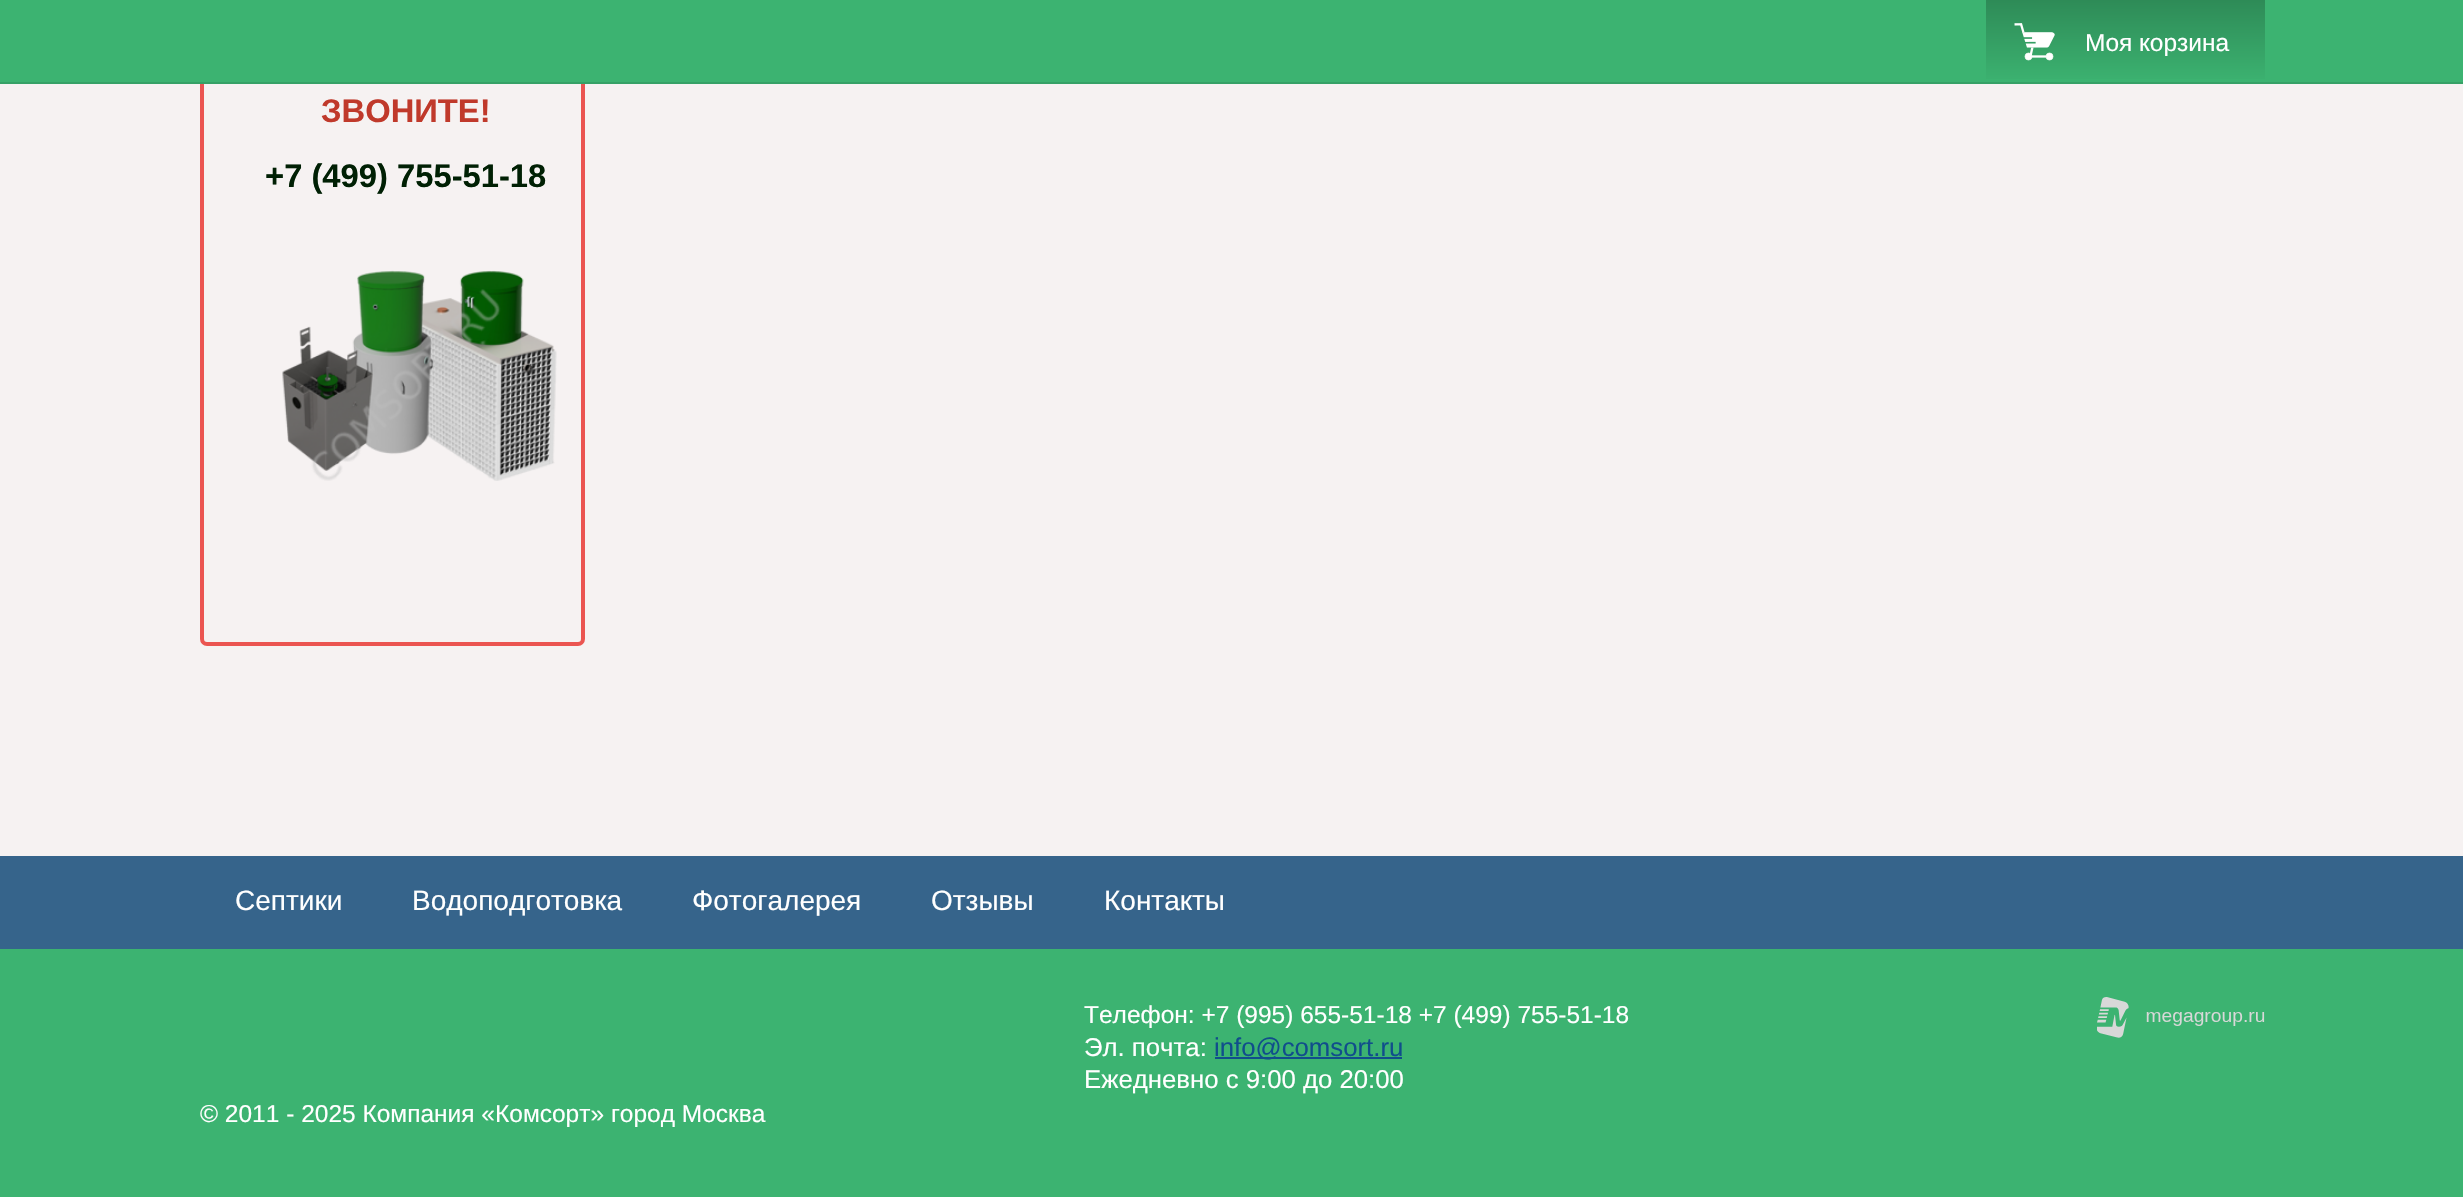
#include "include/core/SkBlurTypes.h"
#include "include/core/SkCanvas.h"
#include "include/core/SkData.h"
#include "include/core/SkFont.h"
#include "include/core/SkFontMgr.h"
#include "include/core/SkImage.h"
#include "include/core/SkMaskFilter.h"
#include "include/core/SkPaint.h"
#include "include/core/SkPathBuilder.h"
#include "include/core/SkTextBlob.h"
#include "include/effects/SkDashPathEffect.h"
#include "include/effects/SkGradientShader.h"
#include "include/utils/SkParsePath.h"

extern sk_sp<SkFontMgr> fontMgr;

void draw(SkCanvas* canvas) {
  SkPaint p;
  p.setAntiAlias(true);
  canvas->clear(SkColorSetRGB(246, 242, 242));
  p.setStyle(SkPaint::kStroke_Style);
  p.setStrokeWidth(4);
  p.setColor(SkColorSetRGB(235, 85, 81));
  canvas->drawRoundRect(SkRect::MakeLTRB(202, -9, 583, 644), 5, 5, p);
  p.setStyle(SkPaint::kFill_Style);
  p.setColor(SkColorSetRGB(60, 179, 113));
  canvas->drawRect(SkRect::MakeLTRB(0, 0, 2463, 82), p);
  p.setColor(SkColorSetRGB(54, 161, 102));
  canvas->drawRect(SkRect::MakeLTRB(0, 82, 2463, 84), p);
  {
    const SkColor colors[] = {SkColorSetRGB(60, 179, 113), SkColorSetRGB(46, 139, 87)};
    const float stops[] = {0, 1};
    const SkPoint ends[] = {{2125, 84}, {2125, 0}};
    p.setShader(SkGradientShader::MakeLinear(ends, colors, stops, 2, SkTileMode::kClamp));
    p.setAlpha(255);
  }
  canvas->drawRect(SkRect::MakeLTRB(1986, 0, 2265, 79), p);
  canvas->drawImageRect(SkImages::DeferredFromEncodedData(SkData::MakeFromFileName("images/1.png")), SkRect::MakeLTRB(2014, 23, 2055, 61), SkSamplingOptions());
  canvas->drawImageRect(SkImages::DeferredFromEncodedData(SkData::MakeFromFileName("images/2.png")), SkRect::MakeLTRB(282, 270, 557, 481), SkSamplingOptions());
  p.setShader(nullptr);
  p.setColor(SkColorSetRGB(60, 179, 113));
  canvas->drawRect(SkRect::MakeLTRB(0, 949, 2463, 1197), p);
  p.setColor(SkColorSetRGB(54, 100, 139));
  canvas->drawRect(SkRect::MakeLTRB(0, 856, 2463, 949), p);
  p.setColor(SkColorSetRGB(16, 78, 139));
  canvas->drawRect(SkRect::MakeLTRB(1215, 1057, 1402, 1059), p);
  canvas->drawImageRect(SkImages::DeferredFromEncodedData(SkData::MakeFromFileName("images/3.png")), SkRect::MakeLTRB(2097, 997, 2265, 1038), SkSamplingOptions());
  SkFont font1(fontMgr->matchFamilyStyle("Liberation Sans", SkFontStyle::Normal()), 24.5f);
  font1.setSubpixel(true);
  p.setColor(SK_ColorWHITE);
  canvas->drawString("Моя корзина", 2085, 51, font1, p);
  SkFont font2(fontMgr->matchFamilyStyle("Liberation Sans", SkFontStyle::Bold()), 32.75f);
  font2.setSubpixel(true);
  p.setColor(SkColorSetRGB(192, 57, 43));
  canvas->drawString("ЗВОНИТЕ!", 321, 122, font2, p);
  p.setColor(SkColorSetRGB(0, 32, 4));
  canvas->drawString("+7 (499) 755-51-18", 265, 187, font2, p);
  SkFont font3(fontMgr->matchFamilyStyle("Liberation Sans", SkFontStyle::Normal()), 28);
  font3.setSubpixel(true);
  p.setColor(SK_ColorWHITE);
  canvas->drawString("Септики", 235, 910, font3, p);
  canvas->drawString("Водоподготовка", 412, 910, font3, p);
  canvas->drawString("Фотогалерея", 692, 910, font3, p);
  canvas->drawString("Отзывы", 931, 910, font3, p);
  canvas->drawString("Контакты", 1104, 910, font3, p);
  canvas->drawString("Телефон: +7 (995) 655-51-18 +7 (499) 755-51-18", 1084, 1023, font1, p);
  SkFont font4(fontMgr->matchFamilyStyle("Liberation Sans", SkFontStyle::Normal()), 25.75f);
  font4.setSubpixel(true);
  canvas->drawString("Эл. почта:", 1084, 1056, font4, p);
  p.setColor(SkColorSetRGB(16, 78, 139));
  canvas->drawString("info@comsort.ru", 1214, 1056, font4, p);
  p.setColor(SK_ColorWHITE);
  canvas->drawString("Ежедневно с 9:00 до 20:00", 1084, 1088, font4, p);
  canvas->drawString("© 2011 - 2025 Компания «Комсорт» город Москва", 200, 1122, font1, p);
}
